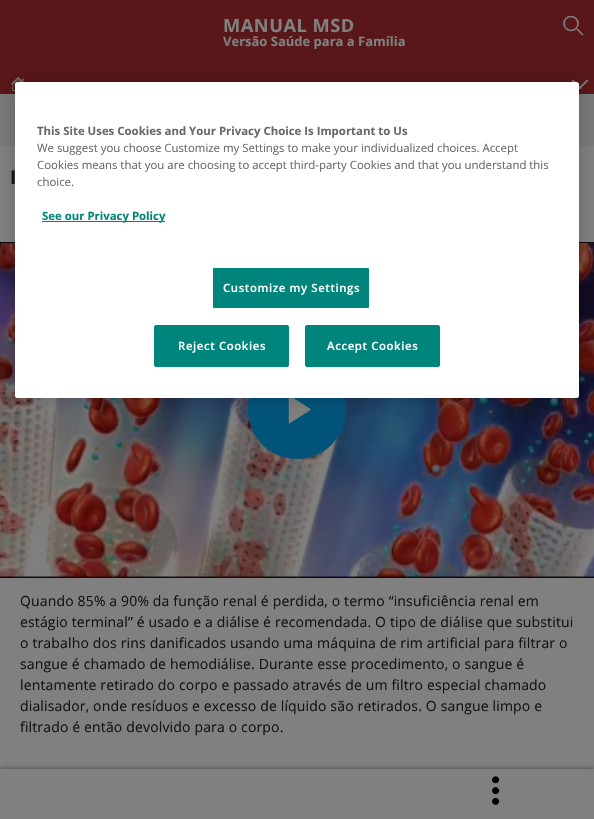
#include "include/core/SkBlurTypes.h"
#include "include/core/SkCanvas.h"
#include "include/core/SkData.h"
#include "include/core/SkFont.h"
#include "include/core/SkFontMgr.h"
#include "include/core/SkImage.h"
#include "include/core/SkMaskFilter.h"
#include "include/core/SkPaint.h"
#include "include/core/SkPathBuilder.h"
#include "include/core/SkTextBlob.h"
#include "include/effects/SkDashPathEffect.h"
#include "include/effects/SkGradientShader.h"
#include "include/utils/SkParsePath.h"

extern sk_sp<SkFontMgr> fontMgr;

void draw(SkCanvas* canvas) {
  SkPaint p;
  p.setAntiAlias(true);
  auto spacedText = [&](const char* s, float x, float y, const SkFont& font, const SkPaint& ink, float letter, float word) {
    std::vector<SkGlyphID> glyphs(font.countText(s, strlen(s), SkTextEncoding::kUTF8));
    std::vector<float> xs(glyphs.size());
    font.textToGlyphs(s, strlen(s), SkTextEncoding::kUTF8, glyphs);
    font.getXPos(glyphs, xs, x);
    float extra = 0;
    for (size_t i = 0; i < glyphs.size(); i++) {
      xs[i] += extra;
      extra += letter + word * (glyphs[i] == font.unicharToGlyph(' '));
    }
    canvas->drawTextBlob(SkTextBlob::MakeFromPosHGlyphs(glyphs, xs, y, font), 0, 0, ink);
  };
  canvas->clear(SkColorSetRGB(121, 121, 121));
  p.setColor(SkColorSetRGB(89, 23, 25));
  canvas->drawRect(SkRect::MakeLTRB(0, 0, 594, 94), p);
  p.setStyle(SkPaint::kStroke_Style);
  p.setStrokeWidth(1.6f);
  p.setColor(SkColorSetRGB(128, 128, 128));
  canvas->drawCircle(571, 23.5f, 7, p);
  canvas->drawPath(SkPathBuilder().moveTo(583, 35).lineTo(577, 29).detach(), p);
  canvas->drawImageRect(SkImages::DeferredFromEncodedData(SkData::MakeFromFileName("images/1.png")), SkRect::MakeLTRB(11, 77, 24, 91), SkSamplingOptions());
  p.setStyle(SkPaint::kFill_Style);
  canvas->drawPath(SkPathBuilder().moveTo(587, 79.5f).lineTo(588.5f, 80.5f).lineTo(580, 89).lineTo(578.5f, 88).close().detach(), p);
  canvas->drawPath(SkPathBuilder().moveTo(573, 79.5f).lineTo(581.5f, 88).lineTo(580, 89).lineTo(571.5f, 80.5f).close().detach(), p);
  canvas->drawRect(SkRect::MakeLTRB(0, 146, 594, 769), p);
  canvas->drawImageRect(SkImages::DeferredFromEncodedData(SkData::MakeFromFileName("images/2.png")), SkRect::MakeLTRB(0, 242, 594, 578), SkSamplingOptions());
  p.setColor(SkColorSetARGB(128, 0, 0, 0));
  p.setMaskFilter(SkMaskFilter::MakeBlur(kNormal_SkBlurStyle, 2.5f));
  canvas->drawRect(SkRect::MakeLTRB(0, 769, 594, 819), p);
  p.setMaskFilter(nullptr);
  p.setColor(SkColorSetRGB(128, 128, 128));
  canvas->drawRect(SkRect::MakeLTRB(0, 769, 594, 819), p);
  canvas->drawImageRect(SkImages::DeferredFromEncodedData(SkData::MakeFromFileName("images/3.png")), SkRect::MakeLTRB(492, 776, 500, 805), SkSamplingOptions());
  p.setColor(SkColorSetARGB(51, 0, 0, 0));
  p.setMaskFilter(SkMaskFilter::MakeBlur(kNormal_SkBlurStyle, 9));
  canvas->drawRoundRect(SkRect::MakeLTRB(15, 82, 579, 398), 2.5f, 2.5f, p);
  p.setMaskFilter(nullptr);
  p.setColor(SK_ColorWHITE);
  canvas->drawRoundRect(SkRect::MakeLTRB(15, 82, 579, 398), 2.5f, 2.5f, p);
  p.setColor(SkColorSetRGB(0, 133, 124));
  canvas->drawRect(SkRect::MakeLTRB(42, 221, 165, 222), p);
  canvas->drawRoundRect(SkRect::MakeLTRB(212.5f, 267.5f, 369.5f, 308.5f), 1.5f, 1.5f, p);
  p.setStyle(SkPaint::kStroke_Style);
  p.setStrokeWidth(1);
  p.setColor(SK_ColorWHITE);
  canvas->drawRoundRect(SkRect::MakeLTRB(212.5f, 267.5f, 369.5f, 308.5f), 1.5f, 1.5f, p);
  p.setStyle(SkPaint::kFill_Style);
  p.setColor(SkColorSetRGB(0, 133, 124));
  canvas->drawRoundRect(SkRect::MakeLTRB(154.5f, 325.5f, 288.5f, 366.5f), 1.5f, 1.5f, p);
  p.setStyle(SkPaint::kStroke_Style);
  canvas->drawRoundRect(SkRect::MakeLTRB(154.5f, 325.5f, 288.5f, 366.5f), 1.5f, 1.5f, p);
  p.setStyle(SkPaint::kFill_Style);
  canvas->drawRoundRect(SkRect::MakeLTRB(305.5f, 325.5f, 439.5f, 366.5f), 1.5f, 1.5f, p);
  p.setStyle(SkPaint::kStroke_Style);
  canvas->drawRoundRect(SkRect::MakeLTRB(305.5f, 325.5f, 439.5f, 366.5f), 1.5f, 1.5f, p);
  SkFont font1(fontMgr->matchFamilyStyle("Open Sans", SkFontStyle::Bold()), 18.25f);
  font1.setSubpixel(true);
  p.setStyle(SkPaint::kFill_Style);
  p.setColor(SkColorSetRGB(128, 128, 128));
  spacedText("MANUAL MSD", 223, 32, font1, p, 0.5f, 0);
  SkFont font2(fontMgr->matchFamilyStyle("Open Sans", SkFontStyle::Bold()), 13);
  font2.setSubpixel(true);
  canvas->drawString("Versão Saúde para a Família", 223, 46, font2, p);
  SkFont font3(fontMgr->matchFamilyStyle("Open Sans", SkFontStyle::Bold()), 19);
  font3.setSubpixel(true);
  p.setColor(SkColorSetRGB(17, 19, 21));
  canvas->drawString("I", 10, 184, font3, p);
  SkFont font4(fontMgr->matchFamilyStyle("Open Sans", SkFontStyle::Normal()), 14);
  font4.setSubpixel(true);
  spacedText("Quando 85% a 90% da função renal é perdida, o termo “insuficiência renal em", 20, 606, font4, p, 0.15f, 0);
  spacedText("estágio terminal” é usado e a diálise é recomendada. O tipo de diálise que substitui", 20, 627, font4, p, 0.15f, 0);
  spacedText("o trabalho dos rins danificados usando uma máquina de rim artificial para filtrar o", 20, 648, font4, p, 0.15f, 0);
  spacedText("sangue é chamado de hemodiálise. Durante esse procedimento, o sangue é", 20, 669, font4, p, 0.15f, 0);
  spacedText("lentamente retirado do corpo e passado através de um filtro especial chamado", 20, 690, font4, p, 0.15f, 0);
  spacedText("dialisador, onde resíduos e excesso de líquido são retirados. O sangue limpo e", 20, 711, font4, p, 0.15f, 0);
  spacedText("filtrado é então devolvido para o corpo.", 20, 732, font4, p, 0.15f, 0);
  SkFont font5(fontMgr->matchFamilyStyle("Open Sans", SkFontStyle::Bold()), 11.4f);
  font5.setSubpixel(true);
  p.setColor(SkColorSetRGB(105, 105, 105));
  canvas->drawString("This Site Uses Cookies and Your Privacy Choice Is Important to Us", 37, 135, font5, p);
  SkFont font6(fontMgr->matchFamilyStyle("Open Sans", SkFontStyle::Normal()), 11.4f);
  font6.setSubpixel(true);
  canvas->drawString("We suggest you choose Customize my Settings to make your individualized choices. Accept", 37, 152, font6, p);
  canvas->drawString("Cookies means that you are choosing to accept third-party Cookies and that you understand this", 37, 169, font6, p);
  canvas->drawString("choice.", 37, 186, font6, p);
  p.setColor(SkColorSetRGB(0, 133, 124));
  canvas->drawString("See our Privacy Policy", 42, 220, font5, p);
  SkFont font7(fontMgr->matchFamilyStyle("Open Sans", SkFontStyle(600, SkFontStyle::kNormal_Width, SkFontStyle::kUpright_Slant)), 11.4f);
  font7.setSubpixel(true);
  p.setColor(SK_ColorWHITE);
  spacedText("Customize my Settings", 223, 292, font7, p, 0.6f, 0);
  spacedText("Reject Cookies", 178, 350, font7, p, 0.6f, 0);
  spacedText("Accept Cookies", 327, 350, font7, p, 0.6f, 0);
}
